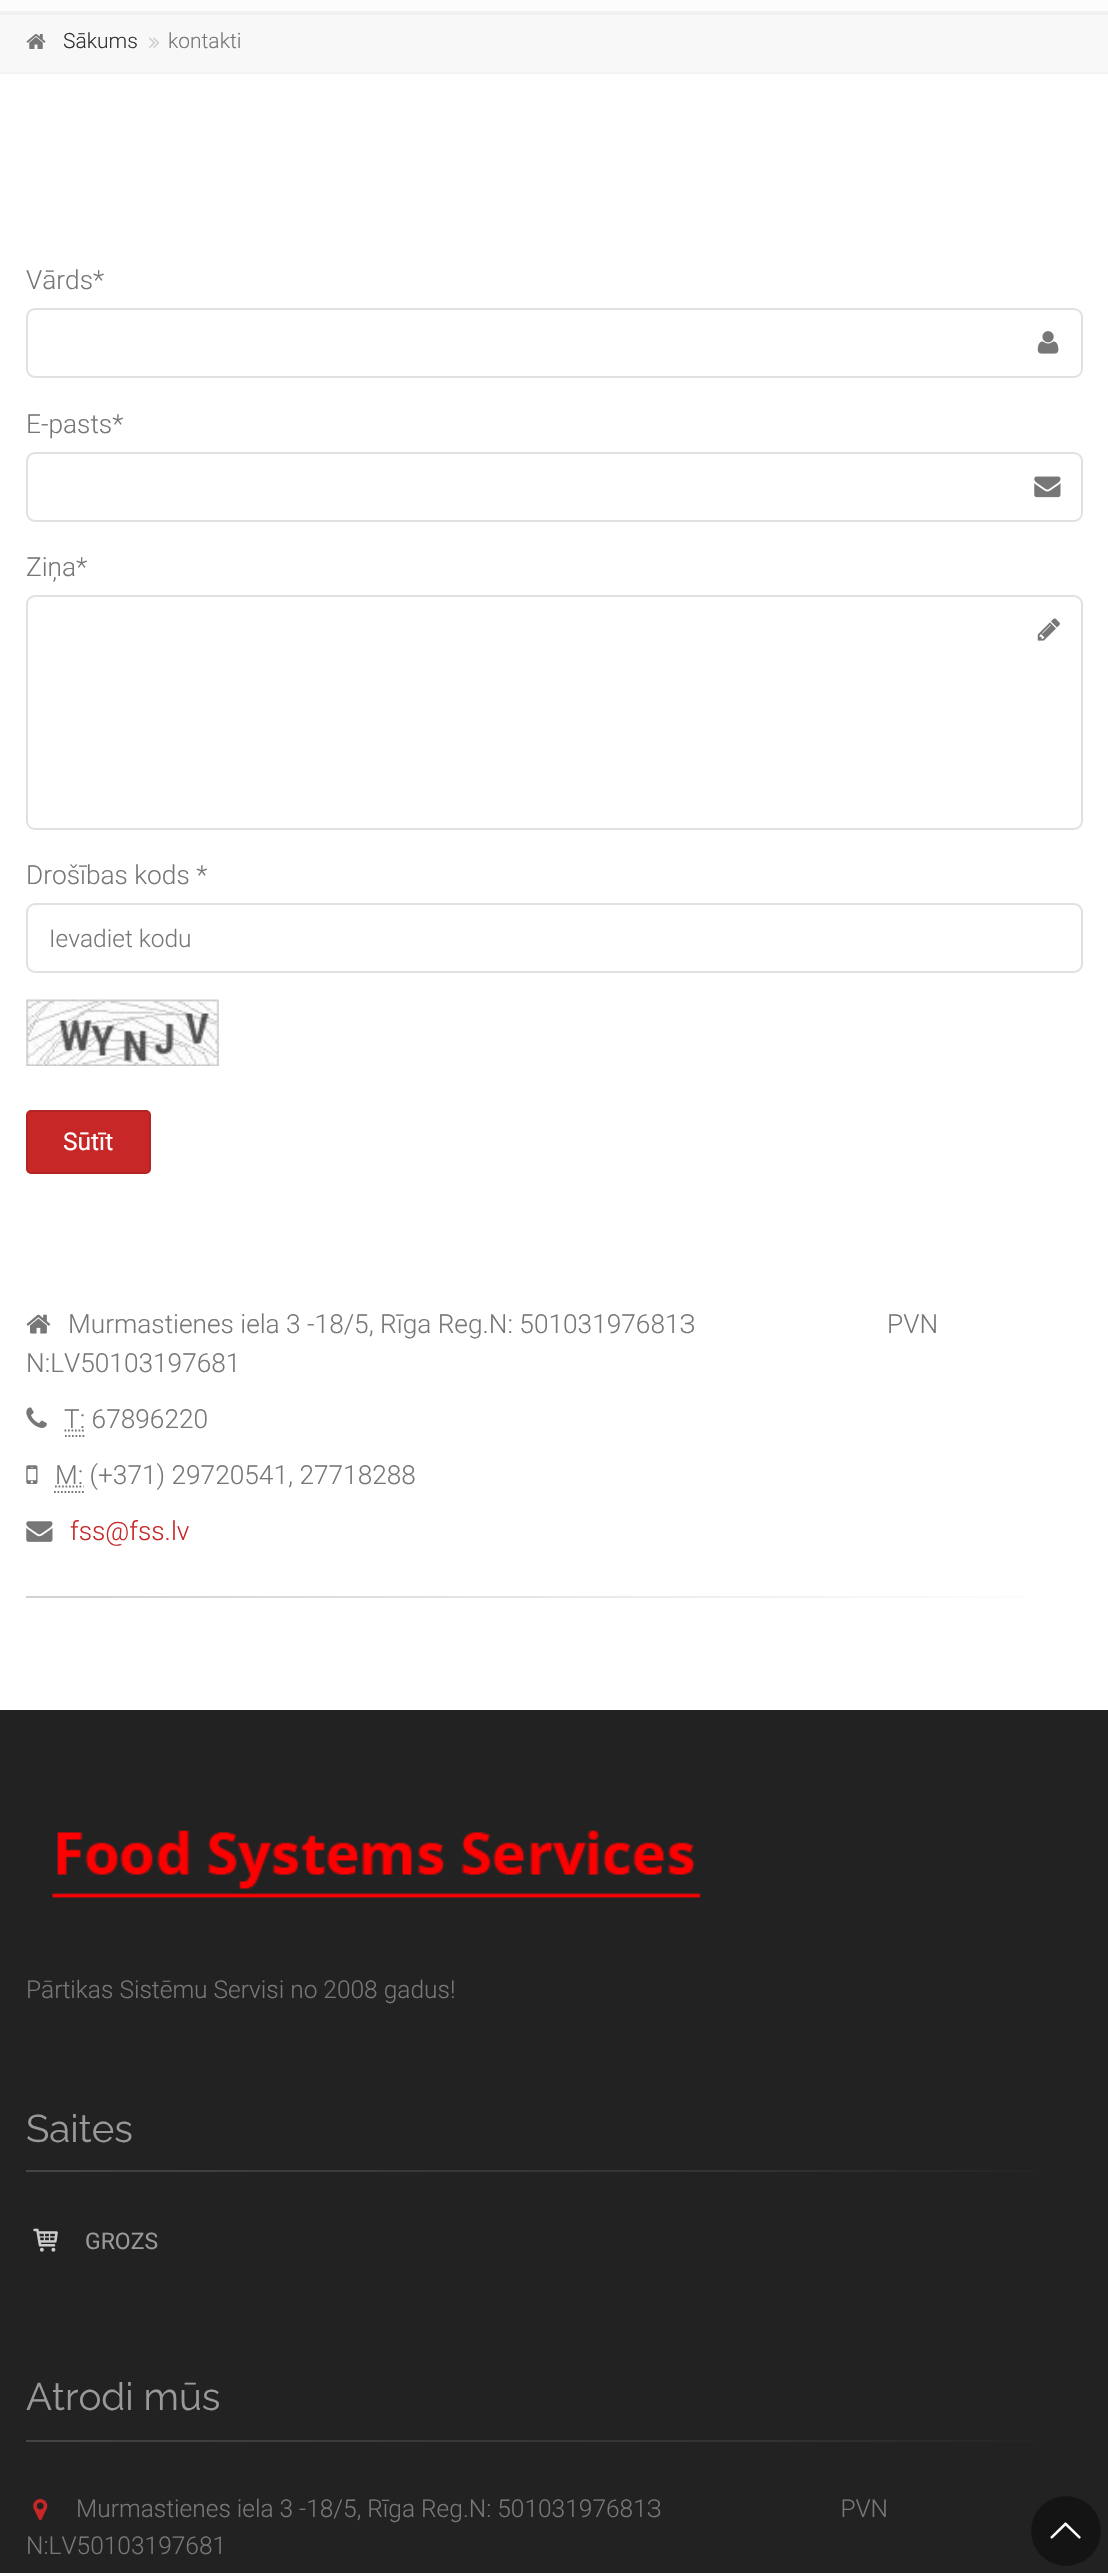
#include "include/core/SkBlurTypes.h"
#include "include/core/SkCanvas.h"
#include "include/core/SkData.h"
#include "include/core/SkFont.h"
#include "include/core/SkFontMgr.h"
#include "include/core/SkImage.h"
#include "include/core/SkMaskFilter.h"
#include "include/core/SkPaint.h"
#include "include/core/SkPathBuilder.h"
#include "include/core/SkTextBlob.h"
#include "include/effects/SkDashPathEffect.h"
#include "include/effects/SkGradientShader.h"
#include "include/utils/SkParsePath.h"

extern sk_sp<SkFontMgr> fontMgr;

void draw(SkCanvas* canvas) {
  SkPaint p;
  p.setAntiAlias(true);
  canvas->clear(SK_ColorWHITE);
  p.setColor(SkColorSetRGB(252, 252, 252));
  canvas->drawRect(SkRect::MakeLTRB(0, 0, 1108, 11), p);
  p.setColor(SkColorSetRGB(241, 241, 241));
  canvas->drawRect(SkRect::MakeLTRB(0, 11, 1108, 15), p);
  p.setColor(SkColorSetRGB(248, 248, 248));
  canvas->drawRect(SkRect::MakeLTRB(0, 15, 1108, 72), p);
  p.setColor(SkColorSetRGB(244, 244, 244));
  canvas->drawRect(SkRect::MakeLTRB(0, 72, 1108, 74), p);
  canvas->drawImageRect(SkImages::DeferredFromEncodedData(SkData::MakeFromFileName("images/1.png")), SkRect::MakeLTRB(26, 34, 46, 49), SkSamplingOptions());
  canvas->drawImageRect(SkImages::DeferredFromEncodedData(SkData::MakeFromFileName("images/2.png")), SkRect::MakeLTRB(149, 37, 160, 48), SkSamplingOptions());
  p.setStyle(SkPaint::kStroke_Style);
  p.setStrokeWidth(2);
  p.setColor(SkColorSetRGB(225, 225, 225));
  canvas->drawRoundRect(SkRect::MakeLTRB(27, 309, 1082, 377), 8, 8, p);
  canvas->drawImageRect(SkImages::DeferredFromEncodedData(SkData::MakeFromFileName("images/3.png")), SkRect::MakeLTRB(1037, 331, 1059, 354), SkSamplingOptions());
  canvas->drawRoundRect(SkRect::MakeLTRB(27, 453, 1082, 521), 8, 8, p);
  canvas->drawImageRect(SkImages::DeferredFromEncodedData(SkData::MakeFromFileName("images/4.png")), SkRect::MakeLTRB(1034, 476, 1061, 498), SkSamplingOptions());
  canvas->drawRoundRect(SkRect::MakeLTRB(27, 596, 1082, 829), 8, 8, p);
  canvas->drawImageRect(SkImages::DeferredFromEncodedData(SkData::MakeFromFileName("images/5.png")), SkRect::MakeLTRB(1037, 618, 1060, 641), SkSamplingOptions());
  canvas->drawRoundRect(SkRect::MakeLTRB(27, 904, 1082, 972), 8, 8, p);
  canvas->drawImageRect(SkImages::DeferredFromEncodedData(SkData::MakeFromFileName("images/6.png")), SkRect::MakeLTRB(26, 999, 219, 1066), SkSamplingOptions());
  p.setStyle(SkPaint::kFill_Style);
  p.setColor(SkColorSetRGB(200, 39, 39));
  canvas->drawRoundRect(SkRect::MakeLTRB(27, 1111, 150, 1173), 4, 4, p);
  p.setStyle(SkPaint::kStroke_Style);
  p.setColor(SkColorSetRGB(180, 36, 36));
  canvas->drawRoundRect(SkRect::MakeLTRB(27, 1111, 150, 1173), 4, 4, p);
  canvas->drawImageRect(SkImages::DeferredFromEncodedData(SkData::MakeFromFileName("images/7.png")), SkRect::MakeLTRB(26, 1314, 51, 1334), SkSamplingOptions());
  canvas->drawImageRect(SkImages::DeferredFromEncodedData(SkData::MakeFromFileName("images/8.png")), SkRect::MakeLTRB(26, 1407, 47, 1428), SkSamplingOptions());
  p.setStrokeWidth(1.8f);
  p.setColor(SkColorSetRGB(119, 119, 119));
  p.setPathEffect(SkDashPathEffect::Make({{1.75f, 1.75f}}, 0));
  canvas->drawPath(SkPathBuilder().moveTo(65, 1436).lineTo(86, 1436).moveTo(64.5f, 1430.5f).lineTo(85.5f, 1430.5f).detach(), p);
  p.setPathEffect(nullptr);
  canvas->drawImageRect(SkImages::DeferredFromEncodedData(SkData::MakeFromFileName("images/9.png")), SkRect::MakeLTRB(26, 1465, 38, 1484), SkSamplingOptions());
  p.setPathEffect(SkDashPathEffect::Make({{1.75f, 1.75f}}, 0));
  canvas->drawPath(SkPathBuilder().moveTo(54, 1492).lineTo(84, 1492).moveTo(55, 1486.5f).lineTo(83.5f, 1486.5f).detach(), p);
  p.setPathEffect(nullptr);
  canvas->drawImageRect(SkImages::DeferredFromEncodedData(SkData::MakeFromFileName("images/10.png")), SkRect::MakeLTRB(26, 1521, 53, 1542), SkSamplingOptions());
  p.setStyle(SkPaint::kFill_Style);
  {
    const SkColor colors[] = {SkColorSetRGB(209, 209, 209), SkColorSetRGB(224, 224, 224), SkColorSetRGB(242, 242, 242), SK_ColorWHITE};
    const float stops[] = {0, 0.35f, 0.7f, 1};
    const SkPoint ends[] = {{26, 1597}, {1083, 1597}};
    p.setShader(SkGradientShader::MakeLinear(ends, colors, stops, 4, SkTileMode::kClamp));
    p.setAlpha(255);
  }
  canvas->drawRect(SkRect::MakeLTRB(26, 1596, 1022, 1598), p);
  p.setShader(nullptr);
  p.setColor(SkColorSetRGB(34, 34, 34));
  canvas->drawRect(SkRect::MakeLTRB(0, 1710, 1108, 2573), p);
  canvas->drawImageRect(SkImages::DeferredFromEncodedData(SkData::MakeFromFileName("images/11.png")), SkRect::MakeLTRB(52, 1830, 701, 1898), SkSamplingOptions());
  {
    const SkColor colors[] = {SkColorSetRGB(68, 68, 68), SkColorSetRGB(57, 57, 57), SkColorSetRGB(50, 50, 50), SkColorSetRGB(34, 34, 34)};
    const float stops[] = {0, 0.35f, 0.7f, 1};
    const SkPoint ends[] = {{26, 2171}, {1083, 2171}};
    p.setShader(SkGradientShader::MakeLinear(ends, colors, stops, 4, SkTileMode::kClamp));
    p.setAlpha(255);
  }
  canvas->drawRect(SkRect::MakeLTRB(26, 2170, 1033, 2172), p);
  canvas->drawImageRect(SkImages::DeferredFromEncodedData(SkData::MakeFromFileName("images/12.png")), SkRect::MakeLTRB(33, 2228, 58, 2252), SkSamplingOptions());
  {
    const SkColor colors[] = {SkColorSetRGB(68, 68, 68), SkColorSetRGB(57, 57, 57), SkColorSetRGB(50, 50, 50), SkColorSetRGB(34, 34, 34)};
    const float stops[] = {0, 0.35f, 0.7f, 1};
    const SkPoint ends[] = {{26, 2440}, {1083, 2440}};
    p.setShader(SkGradientShader::MakeLinear(ends, colors, stops, 4, SkTileMode::kClamp));
    p.setAlpha(255);
  }
  canvas->drawRect(SkRect::MakeLTRB(26, 2440, 1033, 2442), p);
  canvas->drawImageRect(SkImages::DeferredFromEncodedData(SkData::MakeFromFileName("images/13.png")), SkRect::MakeLTRB(33, 2499, 48, 2520), SkSamplingOptions());
  p.setShader(nullptr);
  p.setColor(SkColorSetRGB(20, 20, 20));
  canvas->drawCircle(1066, 2531, 35, p);
  canvas->drawImageRect(SkImages::DeferredFromEncodedData(SkData::MakeFromFileName("images/14.png")), SkRect::MakeLTRB(1050, 2522, 1081, 2539), SkSamplingOptions());
  SkFont font1(fontMgr->matchFamilyStyle("Roboto", SkFontStyle(300, SkFontStyle::kNormal_Width, SkFontStyle::kUpright_Slant)), 21);
  font1.setSubpixel(true);
  p.setColor(SkColorSetRGB(51, 51, 51));
  canvas->drawString("Sākums", 63, 48, font1, p);
  p.setColor(SkColorSetRGB(119, 119, 119));
  canvas->drawString("kontakti", 168, 48, font1, p);
  SkFont font2(fontMgr->matchFamilyStyle("Roboto", SkFontStyle(300, SkFontStyle::kNormal_Width, SkFontStyle::kUpright_Slant)), 26.25f);
  font2.setSubpixel(true);
  canvas->drawString("Vārds*", 26, 289, font2, p);
  canvas->drawString("E-pasts*", 26, 433, font2, p);
  canvas->drawString("Ziņa*", 26, 576, font2, p);
  canvas->drawString("Drošības kods *", 26, 884, font2, p);
  SkFont font3(fontMgr->matchFamilyStyle("Roboto", SkFontStyle(300, SkFontStyle::kNormal_Width, SkFontStyle::kUpright_Slant)), 24.5f);
  font3.setSubpixel(true);
  canvas->drawString("Ievadiet kodu", 49, 947, font3, p);
  SkFont font4(fontMgr->matchFamilyStyle("Roboto", SkFontStyle::Normal()), 24.5f);
  font4.setSubpixel(true);
  p.setColor(SK_ColorWHITE);
  canvas->drawString("Sūtīt", 63, 1150, font4, p);
  p.setColor(SkColorSetRGB(119, 119, 119));
  canvas->drawString("Murmastienes iela 3 -18/5, Rīga Reg.N: 50103197681З                              PVN", 68, 1333, font2, p);
  canvas->drawString("N:LV50103197681", 26, 1372, font2, p);
  canvas->drawString("T: 67896220", 64, 1428, font2, p);
  canvas->drawString("M: (+371) 29720541, 27718288", 55, 1484, font2, p);
  p.setColor(SkColorSetRGB(200, 39, 39));
  canvas->drawString("fss@fss.lv", 70, 1540, font2, p);
  p.setColor(SkColorSetRGB(119, 119, 119));
  canvas->drawString("Pārtikas Sistēmu Servisi no 2008 gadus!", 26, 1998, font3, p);
  SkFont font5(fontMgr->matchFamilyStyle("Raleway", SkFontStyle::Normal()), 38.5f);
  font5.setSubpixel(true);
  p.setColor(SkColorSetRGB(153, 153, 153));
  canvas->drawString("Saites", 26, 2142, font5, p);
  SkFont font6(fontMgr->matchFamilyStyle("Roboto", SkFontStyle::Normal()), 23);
  font6.setSubpixel(true);
  canvas->drawString("GROZS", 85, 2249, font6, p);
  canvas->drawString("Atrodi mūs", 26, 2410, font5, p);
  p.setColor(SkColorSetRGB(119, 119, 119));
  canvas->drawString("Murmastienes iela 3 -18/5, Rīga Reg.N: 50103197681З                              PVN", 76, 2517, font3, p);
  canvas->drawString("N:LV50103197681", 26, 2554, font3, p);
}
